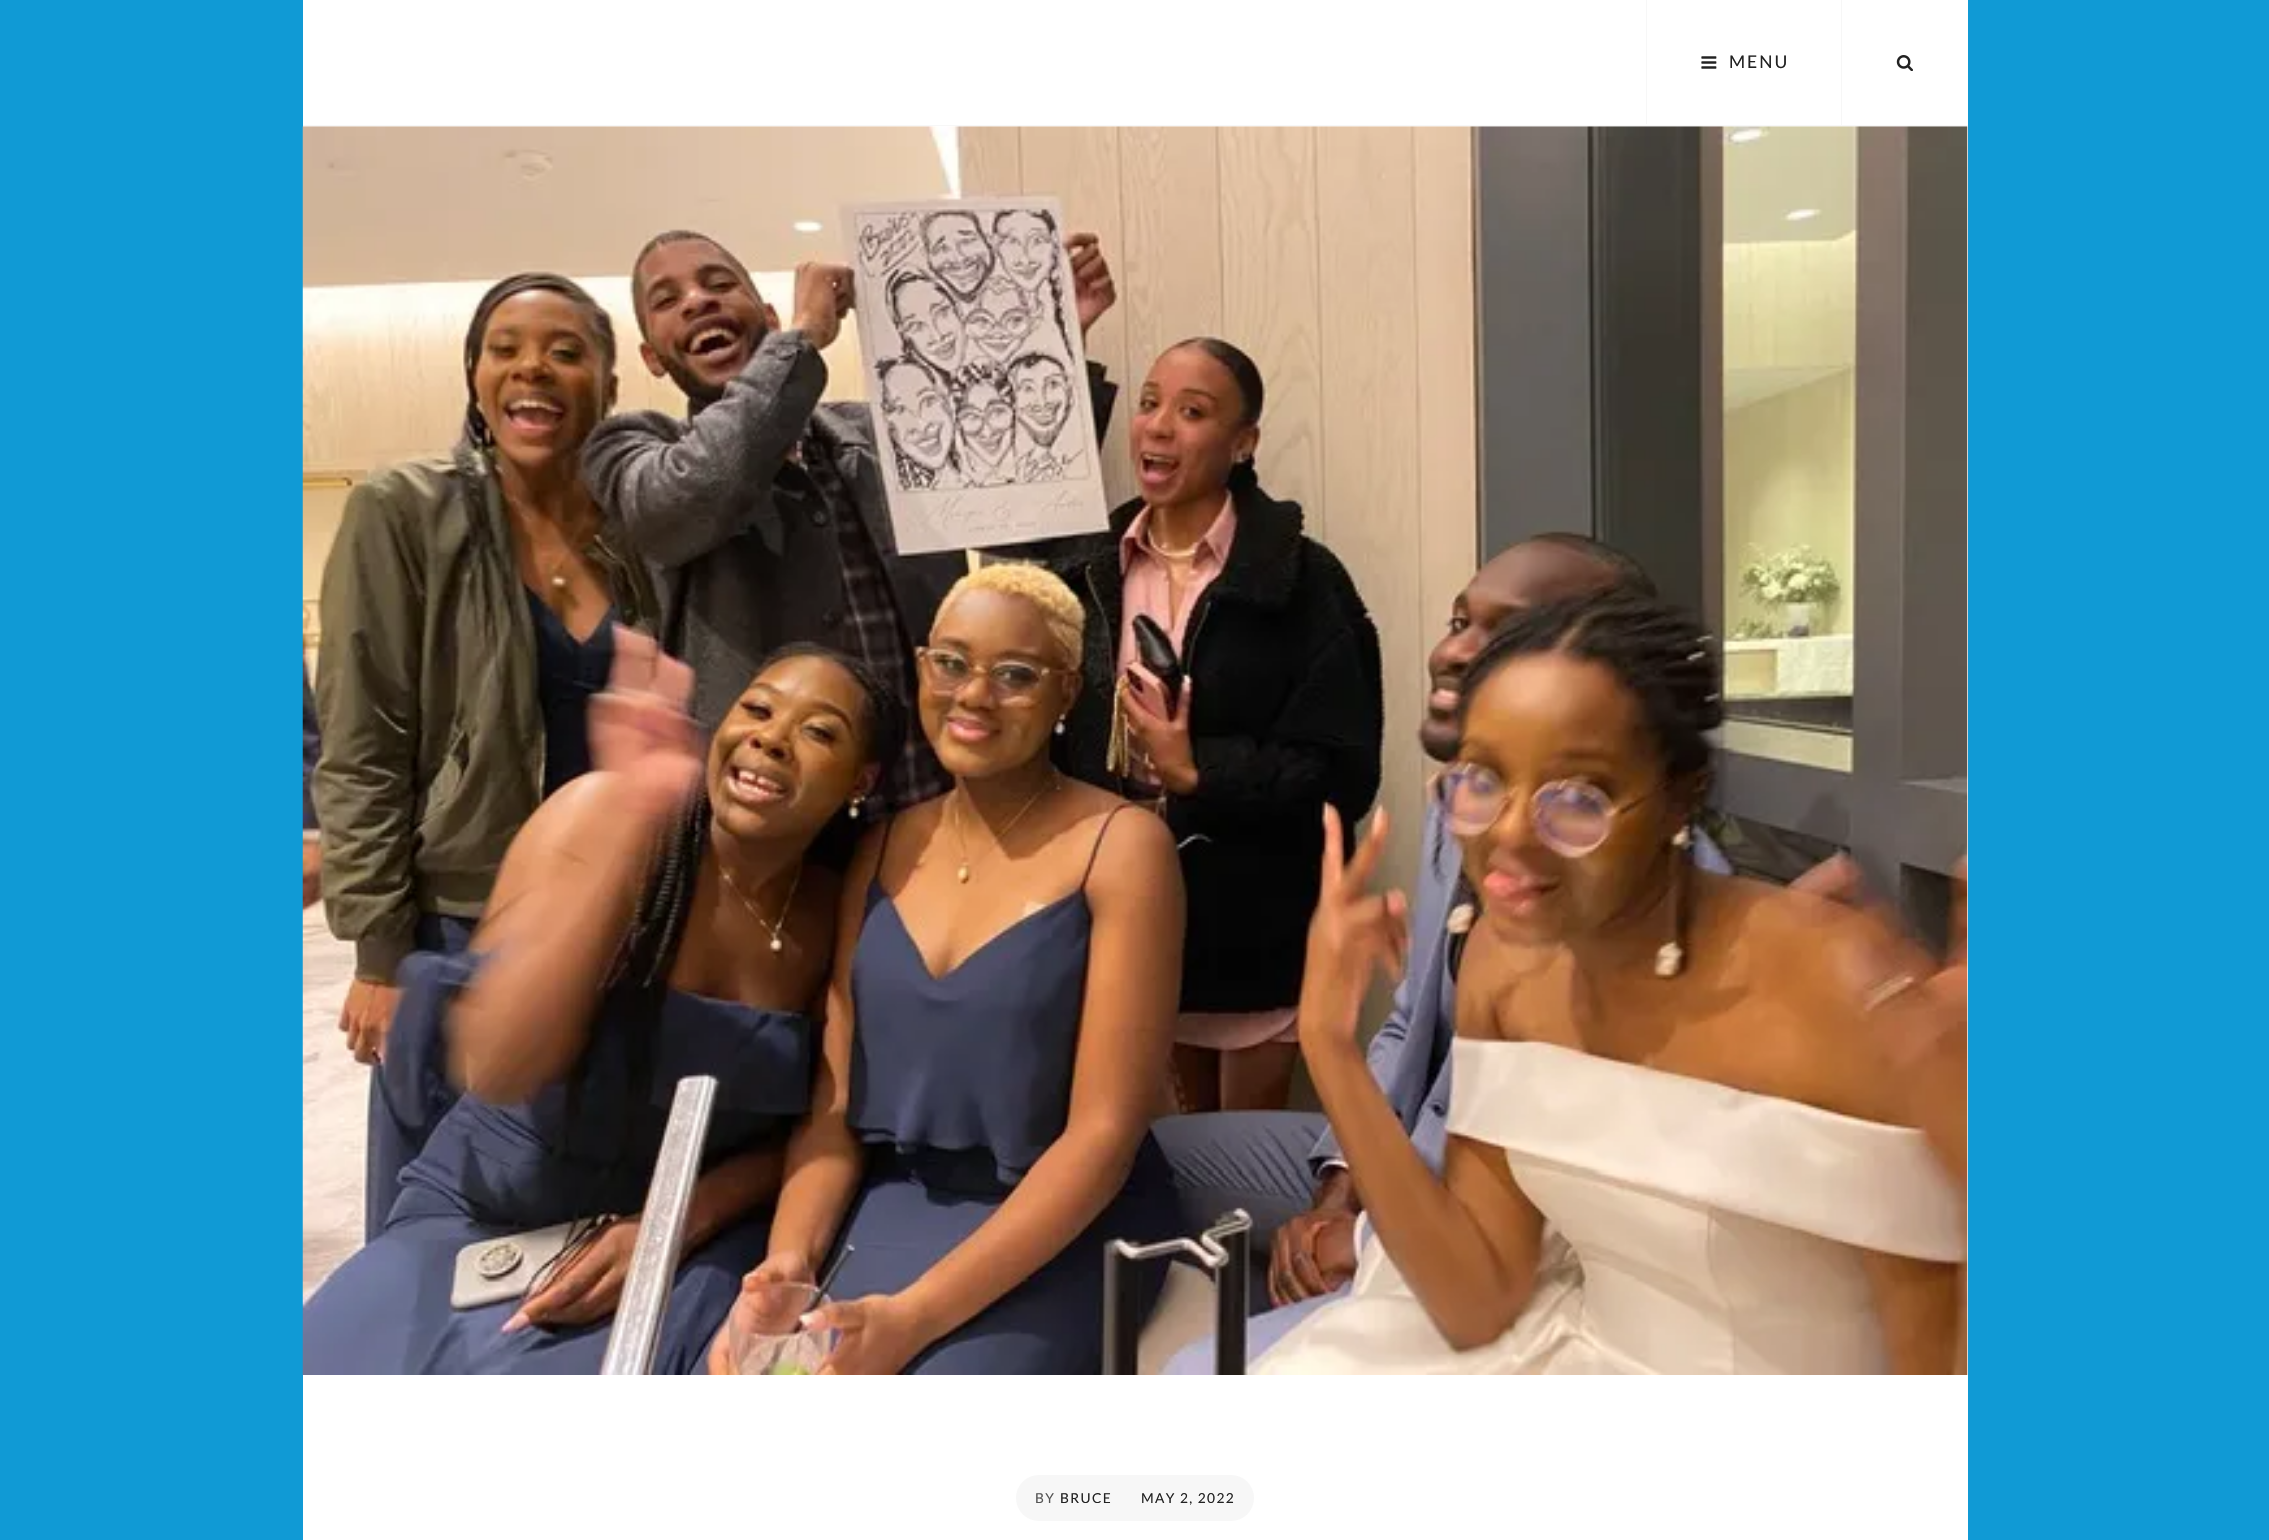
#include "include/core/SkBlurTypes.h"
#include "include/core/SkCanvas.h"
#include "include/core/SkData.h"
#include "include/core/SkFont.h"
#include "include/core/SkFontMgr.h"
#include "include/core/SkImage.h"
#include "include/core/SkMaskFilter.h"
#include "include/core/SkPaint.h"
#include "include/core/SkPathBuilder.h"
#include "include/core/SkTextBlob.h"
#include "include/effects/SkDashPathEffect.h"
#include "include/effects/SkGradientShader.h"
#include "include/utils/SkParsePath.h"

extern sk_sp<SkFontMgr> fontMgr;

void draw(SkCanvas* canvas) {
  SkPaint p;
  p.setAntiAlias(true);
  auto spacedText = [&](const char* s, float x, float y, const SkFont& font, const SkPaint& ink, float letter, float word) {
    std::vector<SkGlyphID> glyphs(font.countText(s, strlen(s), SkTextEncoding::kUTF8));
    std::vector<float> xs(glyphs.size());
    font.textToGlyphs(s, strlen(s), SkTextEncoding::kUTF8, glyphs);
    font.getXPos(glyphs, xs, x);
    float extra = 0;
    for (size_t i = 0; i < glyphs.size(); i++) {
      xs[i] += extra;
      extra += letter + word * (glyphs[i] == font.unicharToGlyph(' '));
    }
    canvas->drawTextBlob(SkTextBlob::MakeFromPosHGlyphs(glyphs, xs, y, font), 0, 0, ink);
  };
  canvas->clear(SkColorSetRGB(16, 154, 213));
  p.setColor(SK_ColorWHITE);
  canvas->drawRect(SkRect::MakeLTRB(303, 0, 1968, 1540), p);
  p.setColor(SkColorSetRGB(247, 247, 247));
  canvas->drawRect(SkRect::MakeLTRB(303, 125, 1968, 126), p);
  canvas->drawRect(SkRect::MakeLTRB(1646, 0, 1647, 124), p);
  canvas->drawImageRect(SkImages::DeferredFromEncodedData(SkData::MakeFromFileName("images/1.png")), SkRect::MakeLTRB(1701, 56, 1717, 69), SkSamplingOptions());
  canvas->drawRect(SkRect::MakeLTRB(1841, 0, 1842, 125), p);
  canvas->drawImageRect(SkImages::DeferredFromEncodedData(SkData::MakeFromFileName("images/2.png")), SkRect::MakeLTRB(1896, 55, 1913, 71), SkSamplingOptions());
  canvas->drawImageRect(SkImages::DeferredFromEncodedData(SkData::MakeFromFileName("images/3.png")), SkRect::MakeLTRB(302, 126, 1968, 1375), SkSamplingOptions());
  canvas->drawRoundRect(SkRect::MakeLTRB(1016, 1475, 1254, 1521), 23, 23, p);
  SkFont font1(fontMgr->matchFamilyStyle("Lato", SkFontStyle::Normal()), 17.5f);
  font1.setSubpixel(true);
  p.setColor(SkColorSetRGB(34, 34, 34));
  spacedText("MENU", 1729, 68, font1, p, 2, 0);
  SkFont font2(fontMgr->matchFamilyStyle("Lato", SkFontStyle::Normal()), 13.75f);
  font2.setSubpixel(true);
  p.setColor(SkColorSetRGB(85, 85, 85));
  spacedText("BY", 1035, 1503, font2, p, 1.4f, 0);
  p.setColor(SkColorSetRGB(34, 34, 34));
  spacedText("BRUCE", 1060, 1503, font2, p, 1.4f, 0);
  spacedText("MAY 2, 2022", 1141, 1503, font2, p, 1.4f, 0);
}
